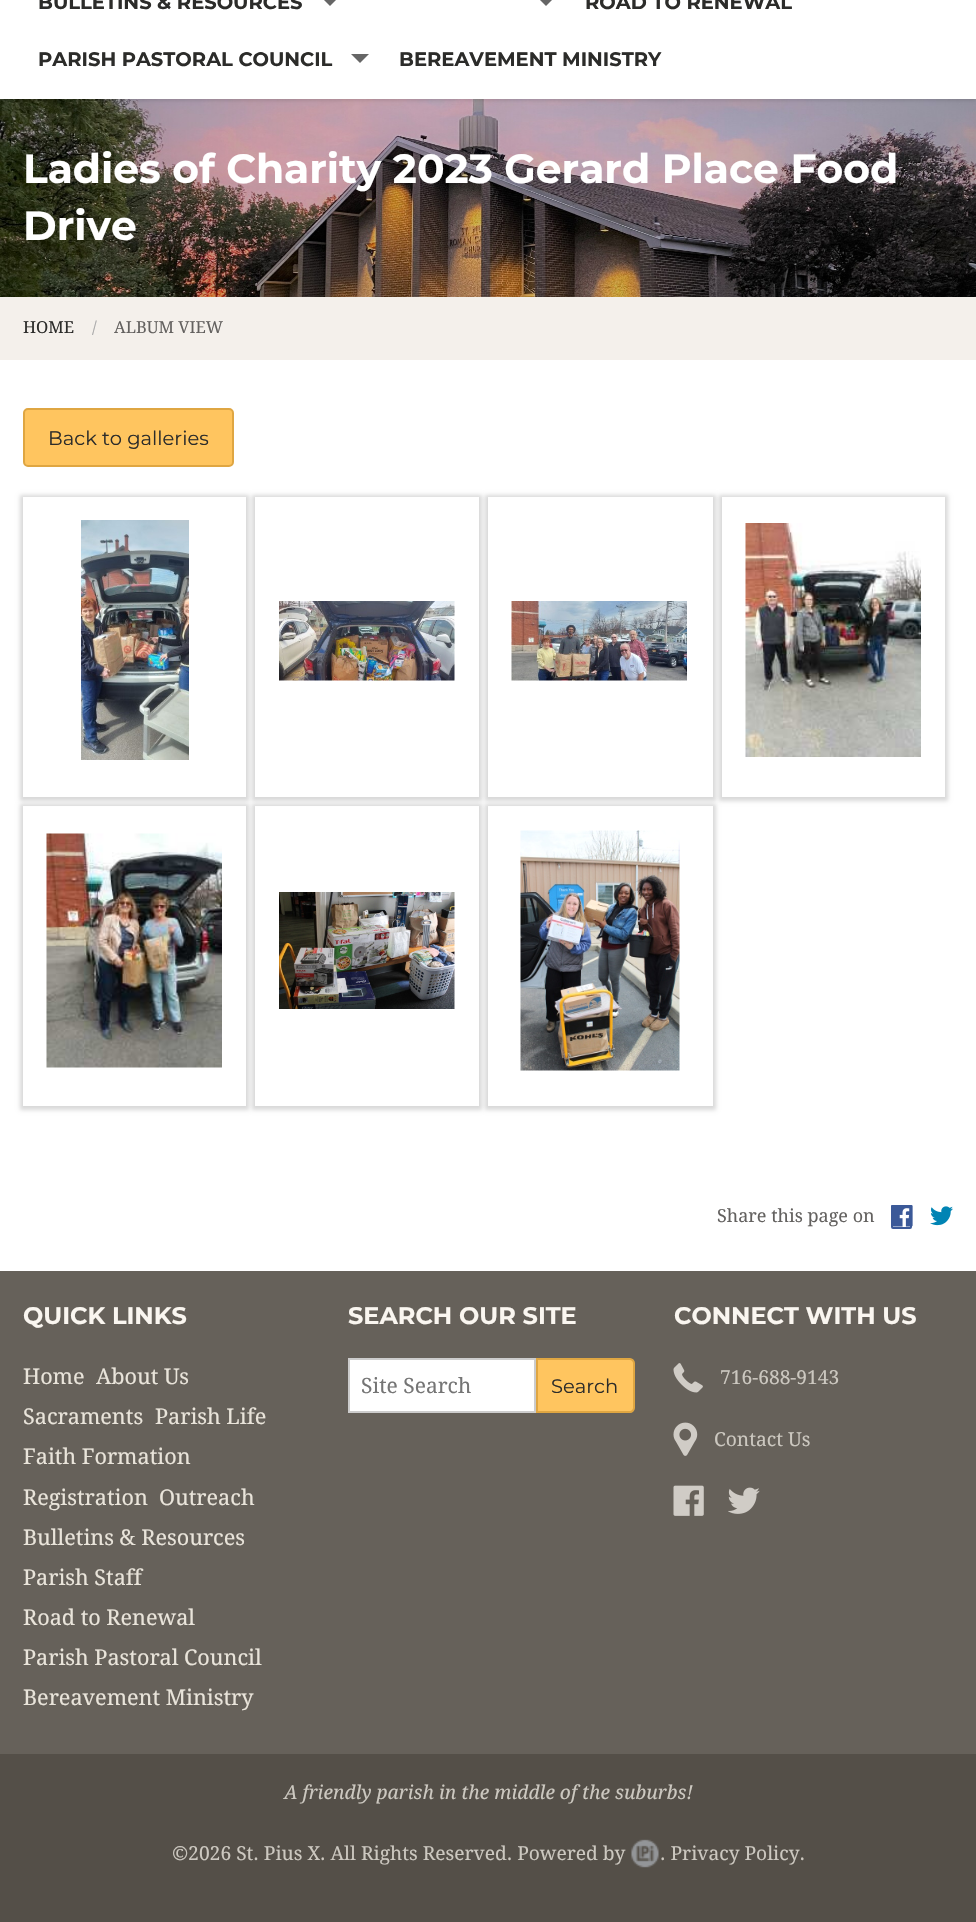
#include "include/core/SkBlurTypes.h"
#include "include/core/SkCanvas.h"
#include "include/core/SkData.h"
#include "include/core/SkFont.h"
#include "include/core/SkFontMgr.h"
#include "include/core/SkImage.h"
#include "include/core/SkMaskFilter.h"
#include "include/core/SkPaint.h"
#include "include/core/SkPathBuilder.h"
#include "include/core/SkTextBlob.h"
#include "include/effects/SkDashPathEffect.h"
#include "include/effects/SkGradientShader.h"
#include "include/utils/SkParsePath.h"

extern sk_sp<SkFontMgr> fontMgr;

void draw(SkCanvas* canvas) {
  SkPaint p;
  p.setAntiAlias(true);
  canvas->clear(SK_ColorWHITE);
  canvas->drawImageRect(SkImages::DeferredFromEncodedData(SkData::MakeFromFileName("images/1.png")), SkRect::MakeLTRB(0, 99, 976, 297), SkSamplingOptions());
  p.setColor(SkColorSetARGB(26, 0, 0, 0));
  p.setMaskFilter(SkMaskFilter::MakeBlur(kNormal_SkBlurStyle, 1.5f));
  canvas->drawRect(SkRect::MakeLTRB(2, -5, 975, 101), p);
  p.setMaskFilter(nullptr);
  p.setColor(SK_ColorWHITE);
  canvas->drawRect(SkRect::MakeLTRB(0, 0, 976, 99), p);
  p.setColor(SkColorSetRGB(102, 102, 102));
  canvas->drawPath(SkPathBuilder().moveTo(321, -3).lineTo(339, -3).lineTo(330, 6).close().detach(), p);
  canvas->drawPath(SkPathBuilder().moveTo(537, -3).lineTo(555, -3).lineTo(546, 6).close().detach(), p);
  canvas->drawPath(SkPathBuilder().moveTo(351, 54).lineTo(369, 54).lineTo(360, 63).close().detach(), p);
  p.setColor(SkColorSetRGB(244, 240, 235));
  canvas->drawRect(SkRect::MakeLTRB(0, 297, 976, 360), p);
  p.setColor(SkColorSetRGB(255, 197, 95));
  canvas->drawRoundRect(SkRect::MakeLTRB(24, 409, 233, 466), 4, 4, p);
  p.setStyle(SkPaint::kStroke_Style);
  p.setStrokeWidth(2);
  p.setColor(SkColorSetRGB(223, 166, 66));
  canvas->drawRoundRect(SkRect::MakeLTRB(24, 409, 233, 466), 4, 4, p);
  canvas->save();
  canvas->clipPath(SkPathBuilder(SkPathFillType::kEvenOdd).moveTo(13, 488).lineTo(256, 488).lineTo(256, 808).lineTo(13, 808).close().moveTo(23, 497).lineTo(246, 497).lineTo(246, 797).lineTo(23, 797).close().detach(), true);
  p.setStyle(SkPaint::kFill_Style);
  p.setColor(SkColorSetARGB(38, 0, 0, 0));
  p.setMaskFilter(SkMaskFilter::MakeBlur(kNormal_SkBlurStyle, 2));
  canvas->drawRect(SkRect::MakeLTRB(20, 495, 249, 801), p);
  p.setMaskFilter(nullptr);
  canvas->restore();
  canvas->drawImageRect(SkImages::DeferredFromEncodedData(SkData::MakeFromFileName("images/2.png")), SkRect::MakeLTRB(81, 520, 189, 760), SkSamplingOptions());
  canvas->save();
  canvas->clipPath(SkPathBuilder(SkPathFillType::kEvenOdd).moveTo(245, 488).lineTo(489, 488).lineTo(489, 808).lineTo(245, 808).close().moveTo(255, 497).lineTo(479, 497).lineTo(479, 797).lineTo(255, 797).close().detach(), true);
  p.setMaskFilter(SkMaskFilter::MakeBlur(kNormal_SkBlurStyle, 2));
  canvas->drawRect(SkRect::MakeLTRB(252, 495, 482, 801), p);
  p.setMaskFilter(nullptr);
  canvas->restore();
  canvas->drawImageRect(SkImages::DeferredFromEncodedData(SkData::MakeFromFileName("images/3.png")), SkRect::MakeLTRB(279, 601, 455, 681), SkSamplingOptions());
  canvas->save();
  canvas->clipPath(SkPathBuilder(SkPathFillType::kEvenOdd).moveTo(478, 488).lineTo(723, 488).lineTo(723, 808).lineTo(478, 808).close().moveTo(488, 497).lineTo(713, 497).lineTo(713, 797).lineTo(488, 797).close().detach(), true);
  p.setMaskFilter(SkMaskFilter::MakeBlur(kNormal_SkBlurStyle, 2));
  canvas->drawRect(SkRect::MakeLTRB(485, 495, 716, 801), p);
  p.setMaskFilter(nullptr);
  canvas->restore();
  canvas->drawImageRect(SkImages::DeferredFromEncodedData(SkData::MakeFromFileName("images/4.png")), SkRect::MakeLTRB(511, 601, 687, 681), SkSamplingOptions());
  canvas->save();
  canvas->clipPath(SkPathBuilder(SkPathFillType::kEvenOdd).moveTo(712, 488).lineTo(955, 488).lineTo(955, 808).lineTo(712, 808).close().moveTo(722, 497).lineTo(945, 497).lineTo(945, 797).lineTo(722, 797).close().detach(), true);
  p.setMaskFilter(SkMaskFilter::MakeBlur(kNormal_SkBlurStyle, 2));
  canvas->drawRect(SkRect::MakeLTRB(719, 495, 948, 801), p);
  p.setMaskFilter(nullptr);
  canvas->restore();
  canvas->drawImageRect(SkImages::DeferredFromEncodedData(SkData::MakeFromFileName("images/5.png")), SkRect::MakeLTRB(745, 523, 921, 757), SkSamplingOptions());
  canvas->save();
  canvas->clipPath(SkPathBuilder(SkPathFillType::kEvenOdd).moveTo(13, 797).lineTo(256, 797).lineTo(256, 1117).lineTo(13, 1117).close().moveTo(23, 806).lineTo(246, 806).lineTo(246, 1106).lineTo(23, 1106).close().detach(), true);
  p.setMaskFilter(SkMaskFilter::MakeBlur(kNormal_SkBlurStyle, 2));
  canvas->drawRect(SkRect::MakeLTRB(20, 804, 249, 1110), p);
  p.setMaskFilter(nullptr);
  canvas->restore();
  canvas->drawImageRect(SkImages::DeferredFromEncodedData(SkData::MakeFromFileName("images/6.png")), SkRect::MakeLTRB(46, 833, 222, 1068), SkSamplingOptions());
  canvas->save();
  canvas->clipPath(SkPathBuilder(SkPathFillType::kEvenOdd).moveTo(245, 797).lineTo(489, 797).lineTo(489, 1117).lineTo(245, 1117).close().moveTo(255, 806).lineTo(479, 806).lineTo(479, 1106).lineTo(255, 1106).close().detach(), true);
  p.setMaskFilter(SkMaskFilter::MakeBlur(kNormal_SkBlurStyle, 2));
  canvas->drawRect(SkRect::MakeLTRB(252, 804, 482, 1110), p);
  p.setMaskFilter(nullptr);
  canvas->restore();
  canvas->drawImageRect(SkImages::DeferredFromEncodedData(SkData::MakeFromFileName("images/7.png")), SkRect::MakeLTRB(279, 892, 455, 1009), SkSamplingOptions());
  canvas->save();
  canvas->clipPath(SkPathBuilder(SkPathFillType::kEvenOdd).moveTo(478, 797).lineTo(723, 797).lineTo(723, 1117).lineTo(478, 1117).close().moveTo(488, 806).lineTo(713, 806).lineTo(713, 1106).lineTo(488, 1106).close().detach(), true);
  p.setMaskFilter(SkMaskFilter::MakeBlur(kNormal_SkBlurStyle, 2));
  canvas->drawRect(SkRect::MakeLTRB(485, 804, 716, 1110), p);
  p.setMaskFilter(nullptr);
  canvas->restore();
  canvas->drawImageRect(SkImages::DeferredFromEncodedData(SkData::MakeFromFileName("images/8.png")), SkRect::MakeLTRB(520, 830, 680, 1071), SkSamplingOptions());
  p.setStyle(SkPaint::kStroke_Style);
  p.setColor(SkColorSetRGB(59, 89, 152));
  canvas->drawRoundRect(SkRect::MakeLTRB(892, 1206, 911, 1228), 1, 1, p);
  canvas->drawImageRect(SkImages::DeferredFromEncodedData(SkData::MakeFromFileName("images/9.png")), SkRect::MakeLTRB(891, 1205, 913, 1227), SkSamplingOptions());
  canvas->drawImageRect(SkImages::DeferredFromEncodedData(SkData::MakeFromFileName("images/10.png")), SkRect::MakeLTRB(930, 1206, 953, 1226), SkSamplingOptions());
  p.setStyle(SkPaint::kFill_Style);
  p.setColor(SkColorSetRGB(102, 97, 90));
  canvas->drawRect(SkRect::MakeLTRB(0, 1271, 976, 1754), p);
  p.setColor(SK_ColorWHITE);
  canvas->drawRect(SkRect::MakeLTRB(349, 1359, 535, 1412), p);
  p.setStyle(SkPaint::kStroke_Style);
  p.setColor(SkColorSetRGB(204, 204, 204));
  canvas->drawRect(SkRect::MakeLTRB(349, 1359, 535, 1412), p);
  p.setStyle(SkPaint::kFill_Style);
  p.setColor(SkColorSetRGB(255, 197, 95));
  canvas->drawPath(SkPathBuilder().moveTo(537, 1359).lineTo(630, 1359).cubicTo(632, 1359, 634, 1361, 634, 1363).lineTo(634, 1408).cubicTo(634, 1410, 632, 1412, 630, 1412).lineTo(537, 1412).close().detach(), p);
  p.setStyle(SkPaint::kStroke_Style);
  p.setColor(SkColorSetRGB(223, 166, 66));
  canvas->drawPath(SkPathBuilder().moveTo(537, 1359).lineTo(630, 1359).cubicTo(632, 1359, 634, 1361, 634, 1363).lineTo(634, 1408).cubicTo(634, 1410, 632, 1412, 630, 1412).lineTo(537, 1412).close().detach(), p);
  canvas->drawImageRect(SkImages::DeferredFromEncodedData(SkData::MakeFromFileName("images/11.png")), SkRect::MakeLTRB(673, 1363, 703, 1393), SkSamplingOptions());
  canvas->drawImageRect(SkImages::DeferredFromEncodedData(SkData::MakeFromFileName("images/12.png")), SkRect::MakeLTRB(673, 1422, 698, 1456), SkSamplingOptions());
  canvas->drawImageRect(SkImages::DeferredFromEncodedData(SkData::MakeFromFileName("images/13.png")), SkRect::MakeLTRB(673, 1485, 704, 1516), SkSamplingOptions());
  canvas->drawImageRect(SkImages::DeferredFromEncodedData(SkData::MakeFromFileName("images/14.png")), SkRect::MakeLTRB(728, 1487, 760, 1514), SkSamplingOptions());
  p.setStyle(SkPaint::kFill_Style);
  p.setColor(SkColorSetRGB(84, 79, 72));
  canvas->drawRect(SkRect::MakeLTRB(0, 1754, 976, 1922), p);
  canvas->drawImageRect(SkImages::DeferredFromEncodedData(SkData::MakeFromFileName("images/15.png")), SkRect::MakeLTRB(631, 1839, 659, 1868), SkSamplingOptions());
  SkFont font1(fontMgr->matchFamilyStyle("Montserrat", SkFontStyle::Bold()), 19.5f);
  font1.setSubpixel(true);
  p.setColor(SkColorSetRGB(44, 44, 42));
  canvas->drawString("BULLETINS & RESOURCES", 38, 9, font1, p);
  canvas->drawString("ROAD TO RENEWAL", 585, 9, font1, p);
  canvas->drawString("PARISH PASTORAL COUNCIL", 38, 66, font1, p);
  canvas->drawString("BEREAVEMENT MINISTRY", 399, 66, font1, p);
  SkFont font2(fontMgr->matchFamilyStyle("Montserrat", SkFontStyle::Bold()), 40.8f);
  font2.setSubpixel(true);
  p.setColor(SK_ColorWHITE);
  canvas->drawString("Ladies of Charity 2023 Gerard Place Food", 23, 183, font2, p);
  canvas->drawString("Drive", 23, 240, font2, p);
  SkFont font3(fontMgr->matchFamilyStyle("Droid Serif", SkFontStyle::Normal()), 16.5f);
  font3.setSubpixel(true);
  p.setColor(SkColorSetRGB(44, 44, 42));
  canvas->drawString("HOME", 23, 333, font3, p);
  p.setColor(SkColorSetRGB(170, 170, 170));
  canvas->drawString("/", 92, 333, font3, p);
  p.setColor(SkColorSetRGB(99, 97, 95));
  canvas->drawString("ALBUM VIEW", 114, 333, font3, p);
  SkFont font4(fontMgr->matchFamilyStyle("Montserrat", SkFontStyle::Normal()), 19.5f);
  font4.setSubpixel(true);
  p.setColor(SkColorSetRGB(44, 44, 42));
  canvas->drawString("Back to galleries", 48, 445, font4, p);
  SkFont font5(fontMgr->matchFamilyStyle("Droid Serif", SkFontStyle::Normal()), 18);
  font5.setSubpixel(true);
  p.setColor(SkColorSetRGB(99, 97, 95));
  canvas->drawString("Share this page on", 717, 1222, font5, p);
  SkFont font6(fontMgr->matchFamilyStyle("Montserrat", SkFontStyle::Bold()), 24);
  font6.setSubpixel(true);
  p.setColor(SkColorSetRGB(250, 246, 240));
  canvas->drawString("QUICK LINKS", 23, 1324, font6, p);
  SkFont font7(fontMgr->matchFamilyStyle("Droid Serif", SkFontStyle::Normal()), 21.6f);
  font7.setSubpixel(true);
  p.setColor(SkColorSetRGB(233, 228, 218));
  canvas->drawString("Home", 23, 1384, font7, p);
  canvas->drawString("About Us", 96, 1384, font7, p);
  canvas->drawString("Sacraments", 23, 1424, font7, p);
  canvas->drawString("Parish Life", 155, 1424, font7, p);
  canvas->drawString("Faith Formation", 23, 1464, font7, p);
  canvas->drawString("Registration", 23, 1505, font7, p);
  canvas->drawString("Outreach", 159, 1505, font7, p);
  canvas->drawString("Bulletins & Resources", 23, 1545, font7, p);
  canvas->drawString("Parish Staff", 23, 1585, font7, p);
  canvas->drawString("Road to Renewal", 23, 1625, font7, p);
  canvas->drawString("Parish Pastoral Council", 23, 1665, font7, p);
  canvas->drawString("Bereavement Ministry", 23, 1705, font7, p);
  p.setColor(SkColorSetRGB(250, 246, 240));
  canvas->drawString("SEARCH OUR SITE", 348, 1324, font6, p);
  SkFont font8(fontMgr->matchFamilyStyle("Droid Serif", SkFontStyle::Normal()), 21);
  font8.setSubpixel(true);
  p.setColor(SkColorSetRGB(117, 117, 117));
  canvas->drawString("Site Search", 361, 1393, font8, p);
  p.setColor(SkColorSetRGB(44, 44, 42));
  canvas->drawString("Search", 551, 1393, font4, p);
  p.setColor(SkColorSetRGB(250, 246, 240));
  canvas->drawString("CONNECT WITH US", 674, 1324, font6, p);
  SkFont font9(fontMgr->matchFamilyStyle("Droid Serif", SkFontStyle::Normal()), 19.2f);
  font9.setSubpixel(true);
  p.setColor(SkColorSetRGB(204, 200, 192));
  canvas->drawString("716-688-9143", 720, 1384, font9, p);
  canvas->drawString("Contact Us", 714, 1446, font9, p);
  SkFont font10(fontMgr->matchFamilyStyle("Droid Serif", SkFontStyle::Italic()), 19.2f);
  font10.setSubpixel(true);
  canvas->drawString("A friendly parish in the middle of the suburbs!", 284, 1799, font10, p);
  canvas->drawString("©2026 St. Pius X. All Rights Reserved. Powered by", 172, 1860, font9, p);
  canvas->drawString(". Privacy Policy.", 660, 1860, font9, p);
}
